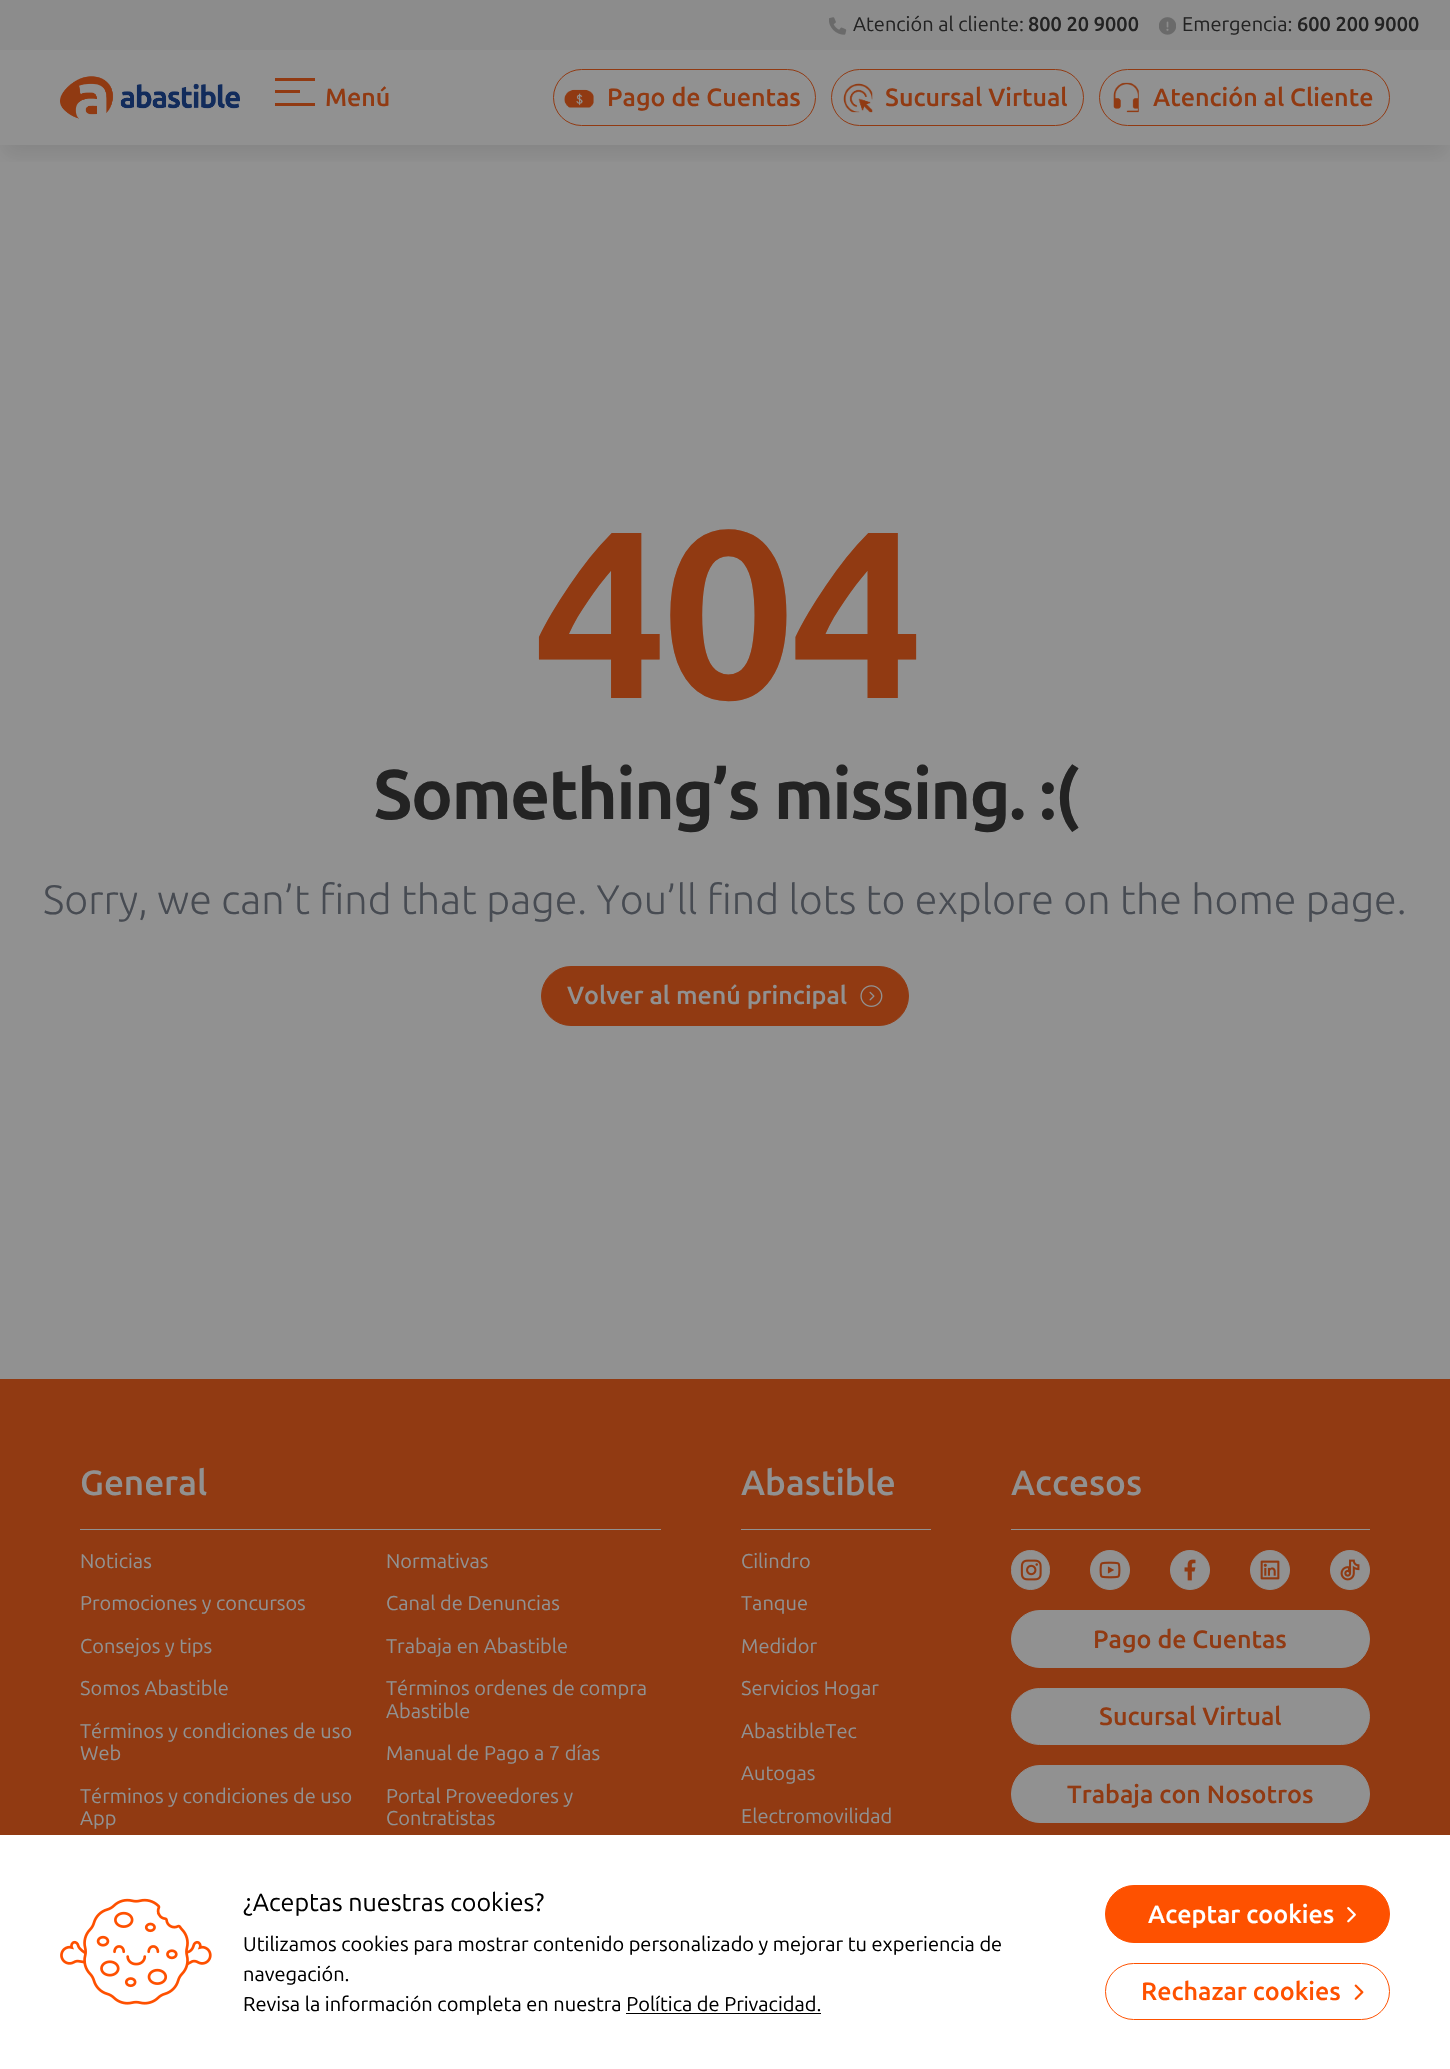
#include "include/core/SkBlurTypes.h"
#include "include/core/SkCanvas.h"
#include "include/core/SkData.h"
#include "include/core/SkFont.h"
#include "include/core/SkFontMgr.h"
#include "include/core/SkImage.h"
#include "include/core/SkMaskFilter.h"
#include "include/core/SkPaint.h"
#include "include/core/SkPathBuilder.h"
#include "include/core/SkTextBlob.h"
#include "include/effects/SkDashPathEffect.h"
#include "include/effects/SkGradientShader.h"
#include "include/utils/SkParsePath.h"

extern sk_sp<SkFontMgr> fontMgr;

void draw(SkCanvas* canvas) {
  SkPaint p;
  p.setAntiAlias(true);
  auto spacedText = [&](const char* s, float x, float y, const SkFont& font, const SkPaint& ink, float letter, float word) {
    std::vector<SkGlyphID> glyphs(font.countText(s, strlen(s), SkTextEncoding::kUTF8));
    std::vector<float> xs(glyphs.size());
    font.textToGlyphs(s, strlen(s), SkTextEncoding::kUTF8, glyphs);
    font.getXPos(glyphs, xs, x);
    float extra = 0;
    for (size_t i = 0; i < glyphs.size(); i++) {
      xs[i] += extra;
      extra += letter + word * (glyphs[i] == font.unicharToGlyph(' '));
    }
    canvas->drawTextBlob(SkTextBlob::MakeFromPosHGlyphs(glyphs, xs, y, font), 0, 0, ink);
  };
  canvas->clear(SkColorSetRGB(145, 145, 145));
  canvas->save();
  canvas->clipRect(SkRect::MakeLTRB(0, 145, 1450, 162));
  p.setColor(SkColorSetARGB(26, 18, 18, 18));
  p.setMaskFilter(SkMaskFilter::MakeBlur(kNormal_SkBlurStyle, 9.5f));
  canvas->drawRect(SkRect::MakeLTRB(4, 16, 1446, 154), p);
  p.setMaskFilter(nullptr);
  canvas->restore();
  p.setColor(SkColorSetRGB(140, 140, 140));
  canvas->drawRect(SkRect::MakeLTRB(0, 0, 1450, 50), p);
  canvas->drawImageRect(SkImages::DeferredFromEncodedData(SkData::MakeFromFileName("images/1.png")), SkRect::MakeLTRB(829, 17, 847, 35), SkSamplingOptions());
  canvas->drawImageRect(SkImages::DeferredFromEncodedData(SkData::MakeFromFileName("images/2.png")), SkRect::MakeLTRB(1159, 17, 1176, 35), SkSamplingOptions());
  canvas->drawImageRect(SkImages::DeferredFromEncodedData(SkData::MakeFromFileName("images/3.png")), SkRect::MakeLTRB(60, 76, 240, 119), SkSamplingOptions());
  p.setColor(SkColorSetRGB(145, 58, 18));
  canvas->drawRect(SkRect::MakeLTRB(275, 78, 315, 81), p);
  canvas->drawRect(SkRect::MakeLTRB(275, 90, 300, 93), p);
  canvas->drawRect(SkRect::MakeLTRB(275, 103, 315, 106), p);
  p.setStyle(SkPaint::kStroke_Style);
  p.setStrokeWidth(1);
  canvas->drawRoundRect(SkRect::MakeLTRB(553.5f, 69.5f, 815.5f, 125.5f), 28, 28, p);
  canvas->drawImageRect(SkImages::DeferredFromEncodedData(SkData::MakeFromFileName("images/4.png")), SkRect::MakeLTRB(564, 89, 594, 108), SkSamplingOptions());
  canvas->drawRoundRect(SkRect::MakeLTRB(831.5f, 69.5f, 1083.5f, 125.5f), 28, 28, p);
  canvas->drawImageRect(SkImages::DeferredFromEncodedData(SkData::MakeFromFileName("images/5.png")), SkRect::MakeLTRB(843, 83, 873, 113), SkSamplingOptions());
  canvas->drawRoundRect(SkRect::MakeLTRB(1099.5f, 69.5f, 1389.5f, 125.5f), 28, 28, p);
  canvas->drawImageRect(SkImages::DeferredFromEncodedData(SkData::MakeFromFileName("images/6.png")), SkRect::MakeLTRB(1113, 82, 1139, 113), SkSamplingOptions());
  p.setStyle(SkPaint::kFill_Style);
  canvas->drawRoundRect(SkRect::MakeLTRB(541.5f, 966.5f, 908.5f, 1025.5f), 29.5f, 29.5f, p);
  p.setStyle(SkPaint::kStroke_Style);
  canvas->drawRoundRect(SkRect::MakeLTRB(541.5f, 966.5f, 908.5f, 1025.5f), 29.5f, 29.5f, p);
  canvas->drawImageRect(SkImages::DeferredFromEncodedData(SkData::MakeFromFileName("images/7.png")), SkRect::MakeLTRB(860, 985, 883, 1007), SkSamplingOptions());
  p.setStyle(SkPaint::kFill_Style);
  canvas->drawRect(SkRect::MakeLTRB(0, 1379, 1450, 1835), p);
  p.setColor(SkColorSetRGB(145, 145, 145));
  canvas->drawRect(SkRect::MakeLTRB(80, 1529, 661, 1530), p);
  canvas->drawRect(SkRect::MakeLTRB(741, 1529, 931, 1530), p);
  canvas->drawRect(SkRect::MakeLTRB(1011, 1529, 1370, 1530), p);
  canvas->drawRoundRect(SkRect::MakeLTRB(1011.5f, 1550.5f, 1049.5f, 1589.5f), 19, 19, p);
  p.setStyle(SkPaint::kStroke_Style);
  canvas->drawRoundRect(SkRect::MakeLTRB(1011.5f, 1550.5f, 1049.5f, 1589.5f), 19, 19, p);
  canvas->drawImageRect(SkImages::DeferredFromEncodedData(SkData::MakeFromFileName("images/8.png")), SkRect::MakeLTRB(1020, 1559, 1042, 1581), SkSamplingOptions());
  p.setStyle(SkPaint::kFill_Style);
  canvas->drawCircle(1110, 1570, 19.5f, p);
  p.setStyle(SkPaint::kStroke_Style);
  canvas->drawCircle(1110, 1570, 19.5f, p);
  canvas->drawImageRect(SkImages::DeferredFromEncodedData(SkData::MakeFromFileName("images/9.png")), SkRect::MakeLTRB(1099, 1561, 1121, 1579), SkSamplingOptions());
  p.setStyle(SkPaint::kFill_Style);
  canvas->drawCircle(1190, 1570, 19.5f, p);
  p.setStyle(SkPaint::kStroke_Style);
  canvas->drawCircle(1190, 1570, 19.5f, p);
  canvas->drawImageRect(SkImages::DeferredFromEncodedData(SkData::MakeFromFileName("images/10.png")), SkRect::MakeLTRB(1184, 1559, 1196, 1581), SkSamplingOptions());
  p.setStyle(SkPaint::kFill_Style);
  canvas->drawCircle(1270, 1570, 19.5f, p);
  p.setStyle(SkPaint::kStroke_Style);
  canvas->drawCircle(1270, 1570, 19.5f, p);
  canvas->drawImageRect(SkImages::DeferredFromEncodedData(SkData::MakeFromFileName("images/11.png")), SkRect::MakeLTRB(1260, 1560, 1280, 1580), SkSamplingOptions());
  p.setStyle(SkPaint::kFill_Style);
  canvas->drawCircle(1350, 1570, 19.5f, p);
  p.setStyle(SkPaint::kStroke_Style);
  canvas->drawCircle(1350, 1570, 19.5f, p);
  canvas->drawImageRect(SkImages::DeferredFromEncodedData(SkData::MakeFromFileName("images/12.png")), SkRect::MakeLTRB(1340, 1559, 1360, 1581), SkSamplingOptions());
  p.setStyle(SkPaint::kFill_Style);
  canvas->drawRoundRect(SkRect::MakeLTRB(1011.5f, 1610.5f, 1369.5f, 1667.5f), 28.5f, 28.5f, p);
  p.setStyle(SkPaint::kStroke_Style);
  canvas->drawRoundRect(SkRect::MakeLTRB(1011.5f, 1610.5f, 1369.5f, 1667.5f), 28.5f, 28.5f, p);
  p.setStyle(SkPaint::kFill_Style);
  canvas->drawRoundRect(SkRect::MakeLTRB(1011.5f, 1688.5f, 1369.5f, 1744.5f), 28, 28, p);
  p.setStyle(SkPaint::kStroke_Style);
  canvas->drawRoundRect(SkRect::MakeLTRB(1011.5f, 1688.5f, 1369.5f, 1744.5f), 28, 28, p);
  p.setStyle(SkPaint::kFill_Style);
  canvas->drawRoundRect(SkRect::MakeLTRB(1011.5f, 1765.5f, 1369.5f, 1822.5f), 28.5f, 28.5f, p);
  p.setStyle(SkPaint::kStroke_Style);
  canvas->drawRoundRect(SkRect::MakeLTRB(1011.5f, 1765.5f, 1369.5f, 1822.5f), 28.5f, 28.5f, p);
  p.setStyle(SkPaint::kFill_Style);
  p.setColor(SK_ColorWHITE);
  canvas->drawRect(SkRect::MakeLTRB(0, 1835, 1450, 2069), p);
  canvas->drawImageRect(SkImages::DeferredFromEncodedData(SkData::MakeFromFileName("images/13.png")), SkRect::MakeLTRB(60, 1898, 212, 2005), SkSamplingOptions());
  p.setColor(SK_ColorBLACK);
  canvas->drawRect(SkRect::MakeLTRB(626, 2013, 821, 2014), p);
  p.setColor(SkColorSetRGB(254, 81, 0));
  canvas->drawRoundRect(SkRect::MakeLTRB(1105.5f, 1885.5f, 1389.5f, 1942.5f), 28.5f, 28.5f, p);
  p.setStyle(SkPaint::kStroke_Style);
  canvas->drawRoundRect(SkRect::MakeLTRB(1105.5f, 1885.5f, 1389.5f, 1942.5f), 28.5f, 28.5f, p);
  canvas->drawImageRect(SkImages::DeferredFromEncodedData(SkData::MakeFromFileName("images/14.png")), SkRect::MakeLTRB(1347, 1907, 1356, 1923), SkSamplingOptions());
  canvas->drawRoundRect(SkRect::MakeLTRB(1105.5f, 1963.5f, 1389.5f, 2019.5f), 28, 28, p);
  canvas->drawImageRect(SkImages::DeferredFromEncodedData(SkData::MakeFromFileName("images/15.png")), SkRect::MakeLTRB(1354, 1984, 1364, 2000), SkSamplingOptions());
  SkFont font1(fontMgr->matchFamilyStyle("Ubuntu Sans", SkFontStyle::Normal()), 20);
  font1.setSubpixel(true);
  p.setStyle(SkPaint::kFill_Style);
  p.setColor(SkColorSetRGB(35, 35, 35));
  canvas->drawString("Atención al cliente:", 853, 31, font1, p);
  SkFont font2(fontMgr->matchFamilyStyle("Ubuntu Sans", SkFontStyle(600, SkFontStyle::kNormal_Width, SkFontStyle::kUpright_Slant)), 20);
  font2.setSubpixel(true);
  canvas->drawString("800 20 9000", 1028, 31, font2, p);
  canvas->drawString("Emergencia:", 1182, 31, font1, p);
  canvas->drawString("600 200 9000", 1297, 31, font2, p);
  SkFont font3(fontMgr->matchFamilyStyle("Ubuntu Sans", SkFontStyle(600, SkFontStyle::kNormal_Width, SkFontStyle::kUpright_Slant)), 25);
  font3.setSubpixel(true);
  p.setColor(SkColorSetRGB(145, 58, 18));
  canvas->drawString("Menú", 325, 106, font3, p);
  canvas->drawString("Pago de Cuentas", 607, 106, font3, p);
  canvas->drawString("Sucursal Virtual", 885, 106, font3, p);
  canvas->drawString("Atención al Cliente", 1153, 106, font3, p);
  SkFont font4(fontMgr->matchFamilyStyle("Ubuntu Sans", SkFontStyle::Bold()), 238);
  font4.setSubpixel(true);
  spacedText("404", 533, 698, font4, p, -6, 0);
  SkFont font5(fontMgr->matchFamilyStyle("Ubuntu Sans", SkFontStyle::Bold()), 70);
  font5.setSubpixel(true);
  p.setColor(SkColorSetRGB(35, 35, 35));
  spacedText("Something’s missing. :(", 373, 819, font5, p, -1.75f, 0);
  SkFont font6(fontMgr->matchFamilyStyle("Ubuntu Sans", SkFontStyle(300, SkFontStyle::kNormal_Width, SkFontStyle::kUpright_Slant)), 41.25f);
  font6.setSubpixel(true);
  p.setColor(SkColorSetRGB(71, 75, 82));
  canvas->drawString("Sorry, we can’t find that page. You’ll find lots to explore on the home page.", 43, 914, font6, p);
  p.setColor(SkColorSetRGB(145, 145, 145));
  canvas->drawString("Volver al menú principal", 567, 1004, font3, p);
  SkFont font7(fontMgr->matchFamilyStyle("Ubuntu Sans", SkFontStyle(600, SkFontStyle::kNormal_Width, SkFontStyle::kUpright_Slant)), 35);
  font7.setSubpixel(true);
  canvas->drawString("General", 80, 1495, font7, p);
  canvas->drawString("Noticias", 80, 1568, font1, p);
  canvas->drawString("Promociones y concursos", 80, 1610, font1, p);
  canvas->drawString("Consejos y tips", 80, 1653, font1, p);
  canvas->drawString("Somos Abastible", 80, 1695, font1, p);
  canvas->drawString("Términos y condiciones de uso", 80, 1738, font1, p);
  canvas->drawString("Web", 80, 1760, font1, p);
  canvas->drawString("Términos y condiciones de uso", 80, 1803, font1, p);
  canvas->drawString("App", 80, 1825, font1, p);
  canvas->drawString("Normativas", 386, 1568, font1, p);
  canvas->drawString("Canal de Denuncias", 386, 1610, font1, p);
  canvas->drawString("Trabaja en Abastible", 386, 1653, font1, p);
  canvas->drawString("Términos ordenes de compra", 386, 1695, font1, p);
  canvas->drawString("Abastible", 386, 1718, font1, p);
  canvas->drawString("Manual de Pago a 7 días", 386, 1760, font1, p);
  canvas->drawString("Portal Proveedores y", 386, 1803, font1, p);
  canvas->drawString("Contratistas", 386, 1825, font1, p);
  canvas->drawString("Abastible", 741, 1495, font7, p);
  canvas->drawString("Cilindro", 741, 1568, font1, p);
  canvas->drawString("Tanque", 741, 1610, font1, p);
  canvas->drawString("Medidor", 741, 1653, font1, p);
  canvas->drawString("Servicios Hogar", 741, 1695, font1, p);
  canvas->drawString("AbastibleTec", 741, 1738, font1, p);
  canvas->drawString("Autogas", 741, 1780, font1, p);
  canvas->drawString("Electromovilidad", 741, 1823, font1, p);
  canvas->drawString("Accesos", 1011, 1495, font7, p);
  p.setColor(SkColorSetRGB(145, 58, 18));
  canvas->drawString("Pago de Cuentas", 1093, 1648, font3, p);
  canvas->drawString("Sucursal Virtual", 1099, 1725, font3, p);
  canvas->drawString("Trabaja con Nosotros", 1067, 1803, font3, p);
  SkFont font8(fontMgr->matchFamilyStyle("Ubuntu Sans", SkFontStyle::Normal()), 25);
  font8.setSubpixel(true);
  p.setColor(SK_ColorBLACK);
  canvas->drawString("¿Aceptas nuestras cookies?", 243, 1911, font8, p);
  canvas->drawString("Utilizamos cookies para mostrar contenido personalizado y mejorar tu experiencia de", 243, 1951, font1, p);
  canvas->drawString("navegación.", 243, 1981, font1, p);
  canvas->drawString("Revisa la información completa en nuestra Política de Privacidad.", 243, 2011, font1, p);
  p.setColor(SK_ColorWHITE);
  canvas->drawString("Aceptar cookies", 1148, 1923, font3, p);
  p.setColor(SkColorSetRGB(254, 81, 0));
  canvas->drawString("Rechazar cookies", 1141, 2000, font3, p);
}
